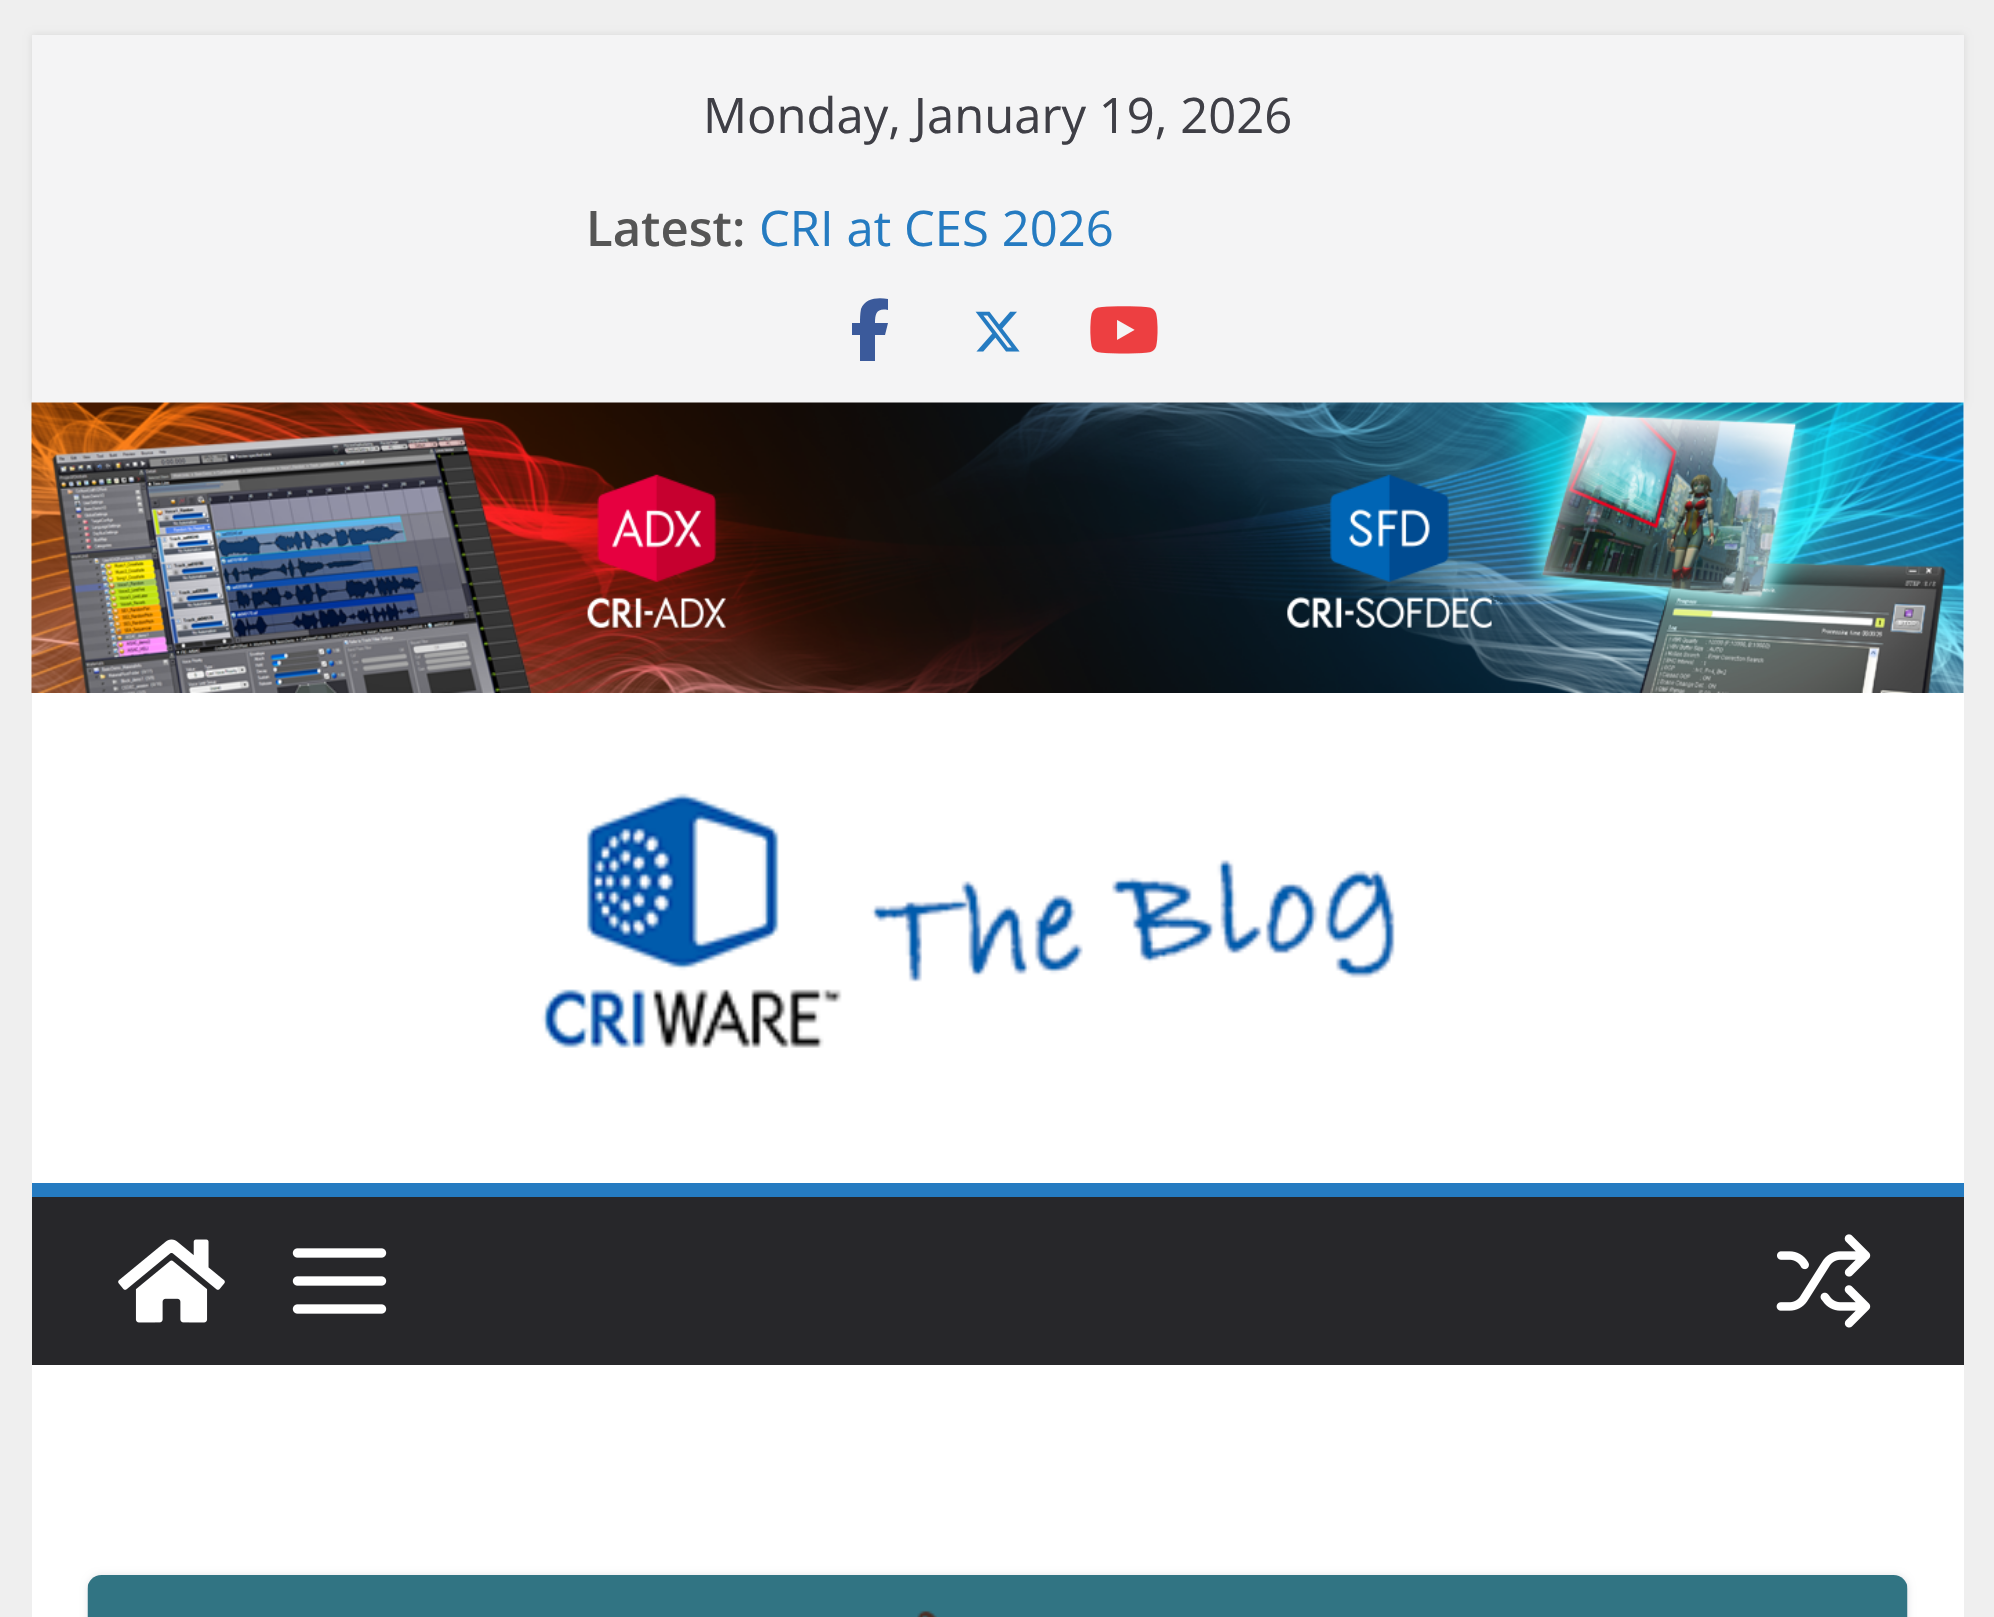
#include "include/core/SkBlurTypes.h"
#include "include/core/SkCanvas.h"
#include "include/core/SkData.h"
#include "include/core/SkFont.h"
#include "include/core/SkFontMgr.h"
#include "include/core/SkImage.h"
#include "include/core/SkMaskFilter.h"
#include "include/core/SkPaint.h"
#include "include/core/SkPathBuilder.h"
#include "include/core/SkTextBlob.h"
#include "include/effects/SkDashPathEffect.h"
#include "include/effects/SkGradientShader.h"
#include "include/utils/SkParsePath.h"

extern sk_sp<SkFontMgr> fontMgr;

void draw(SkCanvas* canvas) {
  SkPaint p;
  p.setAntiAlias(true);
  canvas->clear(SkColorSetRGB(239, 239, 239));
  p.setColor(SK_ColorWHITE);
  canvas->drawRect(SkRect::MakeLTRB(32, 403, 1964, 1183), p);
  p.setColor(SkColorSetARGB(26, 0, 0, 0));
  p.setMaskFilter(SkMaskFilter::MakeBlur(kNormal_SkBlurStyle, 3.5f));
  canvas->drawRect(SkRect::MakeLTRB(32, 35, 1964, 403), p);
  p.setMaskFilter(nullptr);
  p.setColor(SkColorSetRGB(244, 244, 245));
  canvas->drawRect(SkRect::MakeLTRB(32, 35, 1964, 403), p);
  p.setColor(SkColorSetRGB(59, 90, 155));
  canvas->drawPath(SkPathBuilder().moveTo(860, 335).lineTo(860, 361).lineTo(860, 335).lineTo(860, 361).lineTo(875, 361).lineTo(875, 335).lineTo(885, 335).lineTo(888, 323).lineTo(875, 323).cubicTo(875, 313, 877, 308, 888, 310).lineTo(888, 299).cubicTo(878, 297, 865, 298, 861, 309).cubicTo(860, 314, 860, 319, 860, 323).lineTo(852, 323).lineTo(852, 335).close().detach(), p);
  canvas->drawImageRect(SkImages::DeferredFromEncodedData(SkData::MakeFromFileName("images/1.png")), SkRect::MakeLTRB(975, 311, 1020, 352), SkSamplingOptions());
  canvas->drawImageRect(SkImages::DeferredFromEncodedData(SkData::MakeFromFileName("images/2.png")), SkRect::MakeLTRB(1090, 306, 1158, 354), SkSamplingOptions());
  canvas->drawImageRect(SkImages::DeferredFromEncodedData(SkData::MakeFromFileName("images/3.png")), SkRect::MakeLTRB(31, 402, 1964, 693), SkSamplingOptions());
  canvas->drawImageRect(SkImages::DeferredFromEncodedData(SkData::MakeFromFileName("images/4.png")), SkRect::MakeLTRB(541, 793, 1395, 1048), SkSamplingOptions());
  p.setColor(SkColorSetRGB(39, 39, 42));
  canvas->drawRect(SkRect::MakeLTRB(32, 1197, 1964, 1365), p);
  p.setColor(SkColorSetRGB(37, 123, 193));
  canvas->drawRect(SkRect::MakeLTRB(32, 1183, 1964, 1197), p);
  canvas->drawImageRect(SkImages::DeferredFromEncodedData(SkData::MakeFromFileName("images/5.png")), SkRect::MakeLTRB(118, 1239, 225, 1323), SkSamplingOptions());
  canvas->drawImageRect(SkImages::DeferredFromEncodedData(SkData::MakeFromFileName("images/6.png")), SkRect::MakeLTRB(292, 1248, 387, 1314), SkSamplingOptions());
  canvas->drawImageRect(SkImages::DeferredFromEncodedData(SkData::MakeFromFileName("images/7.png")), SkRect::MakeLTRB(1776, 1234, 1871, 1328), SkSamplingOptions());
  p.setColor(SK_ColorWHITE);
  canvas->drawRect(SkRect::MakeLTRB(32, 1365, 1964, 1617), p);
  p.setColor(SkColorSetRGB(228, 228, 231));
  p.setMaskFilter(SkMaskFilter::MakeBlur(kNormal_SkBlurStyle, 3.5f));
  canvas->drawRoundRect(SkRect::MakeLTRB(88, 1575, 1908, 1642), 14, 14, p);
  p.setMaskFilter(nullptr);
  canvas->drawImageRect(SkImages::DeferredFromEncodedData(SkData::MakeFromFileName("images/8.png")), SkRect::MakeLTRB(87, 1575, 1908, 1617), SkSamplingOptions());
  SkFont font1(fontMgr->matchFamilyStyle("Open Sans", SkFontStyle::Normal()), 49);
  font1.setSubpixel(true);
  p.setColor(SkColorSetRGB(63, 63, 70));
  canvas->drawString("Monday, January 19, 2026", 703, 133, font1, p);
  SkFont font2(fontMgr->matchFamilyStyle("Open Sans", SkFontStyle(600, SkFontStyle::kNormal_Width, SkFontStyle::kUpright_Slant)), 49);
  font2.setSubpixel(true);
  p.setColor(SkColorSetRGB(85, 85, 85));
  canvas->drawString("Latest:", 586, 246, font2, p);
  p.setColor(SkColorSetRGB(37, 123, 193));
  canvas->drawString("CRI at CES 2026", 759, 246, font1, p);
}
